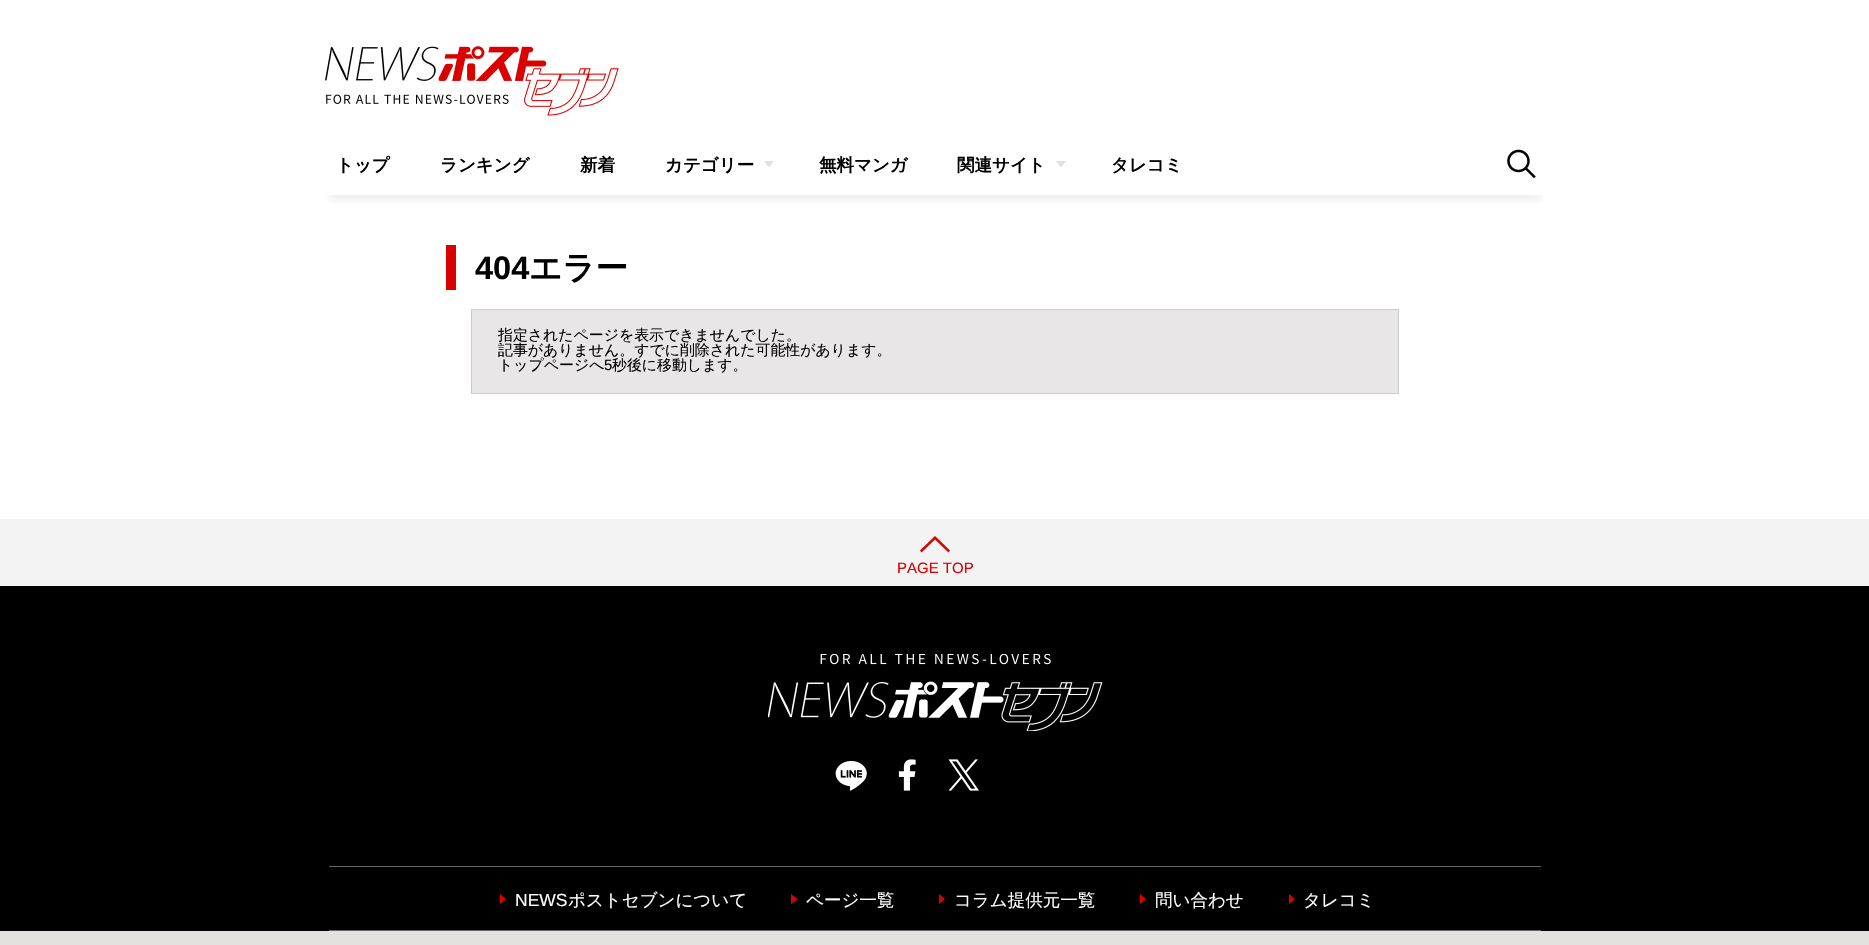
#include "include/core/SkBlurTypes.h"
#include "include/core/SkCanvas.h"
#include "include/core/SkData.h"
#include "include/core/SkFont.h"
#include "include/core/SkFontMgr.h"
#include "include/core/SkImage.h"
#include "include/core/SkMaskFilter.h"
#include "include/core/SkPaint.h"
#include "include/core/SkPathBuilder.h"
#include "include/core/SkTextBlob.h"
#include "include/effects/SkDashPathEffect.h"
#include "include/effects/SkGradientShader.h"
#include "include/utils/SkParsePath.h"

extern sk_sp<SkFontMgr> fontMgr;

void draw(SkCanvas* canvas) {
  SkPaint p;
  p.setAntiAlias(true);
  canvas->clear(SK_ColorWHITE);
  canvas->drawImageRect(SkImages::DeferredFromEncodedData(SkData::MakeFromFileName("images/1.png")), SkRect::MakeLTRB(325, 46, 619, 116), SkSamplingOptions());
  canvas->save();
  canvas->clipRect(SkRect::MakeLTRB(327, 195, 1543, 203));
  p.setColor(SkColorSetARGB(20, 0, 0, 0));
  p.setMaskFilter(SkMaskFilter::MakeBlur(kNormal_SkBlurStyle, 5.5f));
  canvas->drawRect(SkRect::MakeLTRB(329, 151, 1541, 199), p);
  p.setMaskFilter(nullptr);
  canvas->restore();
  p.setColor(SkColorSetRGB(224, 224, 224));
  canvas->drawPath(SkPathBuilder().moveTo(769, 167.5f).lineTo(764, 161).lineTo(774, 161).close().detach(), p);
  canvas->drawPath(SkPathBuilder().moveTo(1061, 167.5f).lineTo(1056, 161).lineTo(1066, 161).close().detach(), p);
  canvas->drawImageRect(SkImages::DeferredFromEncodedData(SkData::MakeFromFileName("images/2.png")), SkRect::MakeLTRB(1507, 149, 1536, 179), SkSamplingOptions());
  p.setColor(SkColorSetRGB(217, 0, 0));
  canvas->drawRect(SkRect::MakeLTRB(446, 245, 456, 290), p);
  p.setColor(SkColorSetRGB(232, 230, 230));
  canvas->drawRect(SkRect::MakeLTRB(471.5f, 309.5f, 1398.5f, 393.5f), p);
  p.setStyle(SkPaint::kStroke_Style);
  p.setStrokeWidth(1);
  p.setColor(SkColorSetRGB(204, 204, 204));
  canvas->drawRect(SkRect::MakeLTRB(471.5f, 309.5f, 1398.5f, 393.5f), p);
  p.setStyle(SkPaint::kFill_Style);
  p.setColor(SkColorSetRGB(243, 243, 243));
  canvas->drawRect(SkRect::MakeLTRB(0, 519, 1869, 586), p);
  p.setColor(SkColorSetRGB(217, 0, 0));
  canvas->drawPath(SkPathBuilder().moveTo(948.5f, 552.5f).lineTo(935, 539.5f).lineTo(921.5f, 552.5f).lineTo(920, 550.5f).lineTo(935, 536).lineTo(950, 550.5f).close().detach(), p);
  p.setColor(SK_ColorBLACK);
  canvas->drawRect(SkRect::MakeLTRB(0, 586, 1869, 931), p);
  canvas->drawImageRect(SkImages::DeferredFromEncodedData(SkData::MakeFromFileName("images/3.png")), SkRect::MakeLTRB(768, 654, 1103, 731), SkSamplingOptions());
  canvas->drawImageRect(SkImages::DeferredFromEncodedData(SkData::MakeFromFileName("images/4.png")), SkRect::MakeLTRB(835, 760, 867, 791), SkSamplingOptions());
  canvas->drawImageRect(SkImages::DeferredFromEncodedData(SkData::MakeFromFileName("images/5.png")), SkRect::MakeLTRB(898, 759, 916, 791), SkSamplingOptions());
  canvas->drawImageRect(SkImages::DeferredFromEncodedData(SkData::MakeFromFileName("images/6.png")), SkRect::MakeLTRB(948, 759, 979, 791), SkSamplingOptions());
  p.setColor(SkColorSetRGB(102, 102, 102));
  canvas->drawRect(SkRect::MakeLTRB(329, 866, 1541, 867), p);
  canvas->drawRect(SkRect::MakeLTRB(329, 930, 1541, 931), p);
  p.setColor(SkColorSetRGB(217, 0, 0));
  canvas->drawPath(SkPathBuilder().moveTo(506, 899).lineTo(500, 904).lineTo(500, 894).close().detach(), p);
  canvas->drawPath(SkPathBuilder().moveTo(797.5f, 899).lineTo(791, 904).lineTo(791, 894).close().detach(), p);
  canvas->drawPath(SkPathBuilder().moveTo(945, 899).lineTo(939, 904).lineTo(939, 894).close().detach(), p);
  canvas->drawPath(SkPathBuilder().moveTo(1146, 899).lineTo(1140, 904).lineTo(1140, 894).close().detach(), p);
  canvas->drawPath(SkPathBuilder().moveTo(1295, 899).lineTo(1289, 904).lineTo(1289, 894).close().detach(), p);
  p.setColor(SkColorSetRGB(227, 226, 222));
  canvas->drawRect(SkRect::MakeLTRB(0, 931, 1869, 945), p);
  SkFont font1(fontMgr->matchFamilyStyle("WenQuanYi Zen Hei", SkFontStyle::Bold()), 17.5f);
  font1.setSubpixel(true);
  p.setColor(SK_ColorBLACK);
  canvas->drawString("トップ", 336, 171, font1, p);
  canvas->drawString("ランキング", 440, 171, font1, p);
  canvas->drawString("新着", 580, 171, font1, p);
  canvas->drawString("カテゴリー", 665, 171, font1, p);
  canvas->drawString("無料マンガ", 819, 171, font1, p);
  canvas->drawString("関連サイト", 957, 171, font1, p);
  canvas->drawString("タレコミ", 1111, 171, font1, p);
  SkFont font2(fontMgr->matchFamilyStyle("Liberation Sans", SkFontStyle::Bold()), 32.5f);
  font2.setSubpixel(true);
  canvas->drawString("404", 475, 279, font2, p);
  SkFont font3(fontMgr->matchFamilyStyle("WenQuanYi Zen Hei", SkFontStyle::Bold()), 32.5f);
  font3.setSubpixel(true);
  canvas->drawString("エラー", 529, 279, font3, p);
  SkFont font4(fontMgr->matchFamilyStyle("WenQuanYi Zen Hei", SkFontStyle(500, SkFontStyle::kNormal_Width, SkFontStyle::kUpright_Slant)), 14.9f);
  font4.setSubpixel(true);
  canvas->drawString("指定されたページを表示できませんでした。", 498, 340, font4, p);
  canvas->drawString("記事がありません。すでに削除された可能性があります。", 498, 355, font4, p);
  canvas->drawString("トップページへ", 498, 370, font4, p);
  SkFont font5(fontMgr->matchFamilyStyle("Liberation Sans", SkFontStyle::Normal()), 14.9f);
  font5.setSubpixel(true);
  canvas->drawString("5", 604, 370, font5, p);
  canvas->drawString("秒後に移動します。", 612, 370, font4, p);
  SkFont font6(fontMgr->matchFamilyStyle("Liberation Sans", SkFontStyle::Normal()), 15);
  font6.setSubpixel(true);
  p.setColor(SkColorSetRGB(217, 0, 0));
  canvas->drawString("PAGE TOP", 897, 573, font6, p);
  SkFont font7(fontMgr->matchFamilyStyle("Liberation Sans", SkFontStyle::Normal()), 17.5f);
  font7.setSubpixel(true);
  p.setColor(SK_ColorWHITE);
  canvas->drawString("NEWS", 515, 906, font7, p);
  SkFont font8(fontMgr->matchFamilyStyle("WenQuanYi Zen Hei", SkFontStyle(500, SkFontStyle::kNormal_Width, SkFontStyle::kUpright_Slant)), 17.5f);
  font8.setSubpixel(true);
  canvas->drawString("ポストセブンについて", 568, 906, font8, p);
  canvas->drawString("ページ一覧", 806, 906, font8, p);
  canvas->drawString("コラム提供元一覧", 954, 906, font8, p);
  canvas->drawString("問い合わせ", 1155, 906, font8, p);
  canvas->drawString("タレコミ", 1303, 906, font8, p);
}
